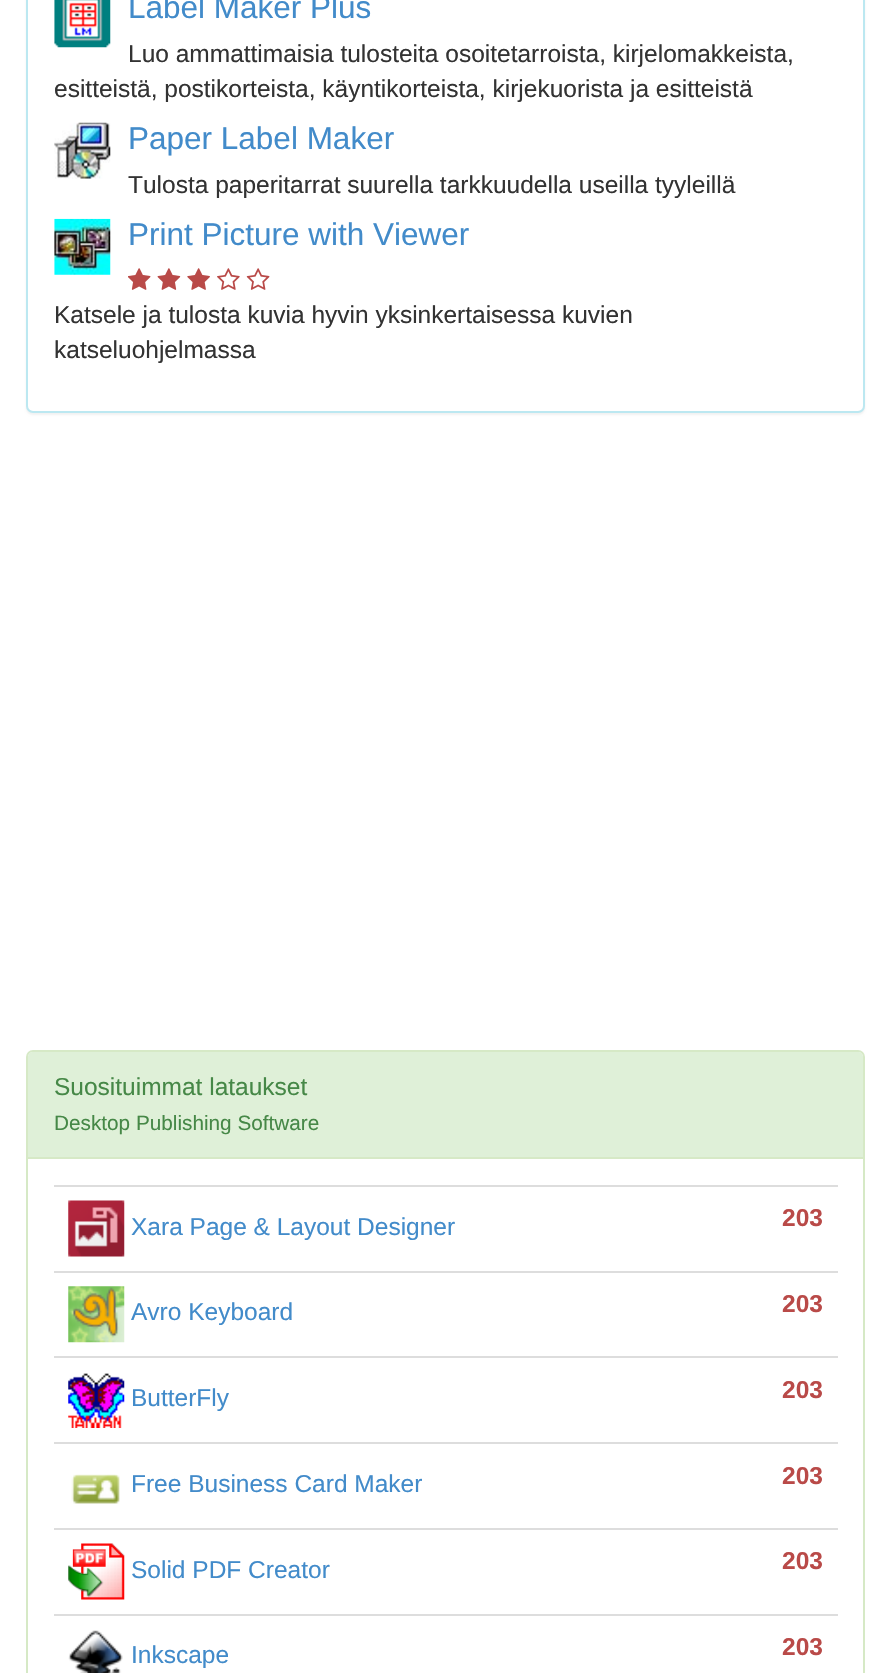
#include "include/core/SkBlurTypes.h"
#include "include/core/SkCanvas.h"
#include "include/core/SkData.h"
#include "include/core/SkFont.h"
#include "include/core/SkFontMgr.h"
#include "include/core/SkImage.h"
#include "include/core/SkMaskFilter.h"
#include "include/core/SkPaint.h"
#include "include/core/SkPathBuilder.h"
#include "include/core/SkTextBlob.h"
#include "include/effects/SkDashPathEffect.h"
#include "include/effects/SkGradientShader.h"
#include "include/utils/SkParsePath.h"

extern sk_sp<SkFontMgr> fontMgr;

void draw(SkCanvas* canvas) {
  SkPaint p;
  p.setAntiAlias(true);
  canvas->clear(SK_ColorWHITE);
  p.setColor(SkColorSetARGB(13, 0, 0, 0));
  p.setMaskFilter(SkMaskFilter::MakeBlur(kNormal_SkBlurStyle, 1));
  canvas->drawRoundRect(SkRect::MakeLTRB(26, -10, 865, 415), 7, 7, p);
  p.setMaskFilter(nullptr);
  p.setColor(SK_ColorWHITE);
  canvas->drawRoundRect(SkRect::MakeLTRB(27, -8, 864, 412), 6, 6, p);
  p.setStyle(SkPaint::kStroke_Style);
  p.setStrokeWidth(2);
  p.setColor(SkColorSetRGB(188, 232, 241));
  canvas->drawRoundRect(SkRect::MakeLTRB(27, -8, 864, 412), 6, 6, p);
  canvas->drawImageRect(SkImages::DeferredFromEncodedData(SkData::MakeFromFileName("images/1.png")), SkRect::MakeLTRB(54, 0, 111, 48), SkSamplingOptions());
  canvas->drawImageRect(SkImages::DeferredFromEncodedData(SkData::MakeFromFileName("images/2.png")), SkRect::MakeLTRB(54, 122, 111, 179), SkSamplingOptions());
  canvas->drawImageRect(SkImages::DeferredFromEncodedData(SkData::MakeFromFileName("images/3.png")), SkRect::MakeLTRB(54, 218, 111, 275), SkSamplingOptions());
  canvas->drawImageRect(SkImages::DeferredFromEncodedData(SkData::MakeFromFileName("images/4.png")), SkRect::MakeLTRB(128, 268, 151, 290), SkSamplingOptions());
  canvas->drawImageRect(SkImages::DeferredFromEncodedData(SkData::MakeFromFileName("images/5.png")), SkRect::MakeLTRB(157, 268, 181, 290), SkSamplingOptions());
  canvas->drawImageRect(SkImages::DeferredFromEncodedData(SkData::MakeFromFileName("images/6.png")), SkRect::MakeLTRB(187, 268, 210, 290), SkSamplingOptions());
  canvas->drawImageRect(SkImages::DeferredFromEncodedData(SkData::MakeFromFileName("images/7.png")), SkRect::MakeLTRB(217, 268, 240, 290), SkSamplingOptions());
  canvas->drawImageRect(SkImages::DeferredFromEncodedData(SkData::MakeFromFileName("images/8.png")), SkRect::MakeLTRB(246, 268, 270, 290), SkSamplingOptions());
  p.setColor(SkColorSetRGB(214, 233, 198));
  canvas->drawRoundRect(SkRect::MakeLTRB(27, 1051, 864, 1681), 6, 6, p);
  p.setStyle(SkPaint::kFill_Style);
  p.setColor(SkColorSetRGB(223, 240, 216));
  canvas->drawPath(SkPathBuilder().moveTo(33, 1052).lineTo(858, 1052).cubicTo(861, 1052, 863, 1054, 863, 1057).lineTo(863, 1159).lineTo(28, 1159).lineTo(28, 1057).cubicTo(28, 1054, 30, 1052, 33, 1052).close().detach(), p);
  p.setColor(SkColorSetRGB(214, 233, 198));
  canvas->drawRect(SkRect::MakeLTRB(28, 1157, 863, 1159), p);
  p.setColor(SkColorSetRGB(221, 221, 221));
  canvas->drawRect(SkRect::MakeLTRB(54, 1185, 838, 1187), p);
  canvas->drawImageRect(SkImages::DeferredFromEncodedData(SkData::MakeFromFileName("images/9.png")), SkRect::MakeLTRB(68, 1200, 125, 1257), SkSamplingOptions());
  canvas->drawRect(SkRect::MakeLTRB(54, 1271, 838, 1273), p);
  canvas->drawImageRect(SkImages::DeferredFromEncodedData(SkData::MakeFromFileName("images/10.png")), SkRect::MakeLTRB(68, 1286, 125, 1343), SkSamplingOptions());
  canvas->drawRect(SkRect::MakeLTRB(54, 1356, 838, 1358), p);
  canvas->drawImageRect(SkImages::DeferredFromEncodedData(SkData::MakeFromFileName("images/11.png")), SkRect::MakeLTRB(68, 1373, 125, 1428), SkSamplingOptions());
  canvas->drawRect(SkRect::MakeLTRB(54, 1442, 838, 1444), p);
  canvas->drawImageRect(SkImages::DeferredFromEncodedData(SkData::MakeFromFileName("images/12.png")), SkRect::MakeLTRB(71, 1474, 120, 1504), SkSamplingOptions());
  canvas->drawRect(SkRect::MakeLTRB(54, 1528, 838, 1530), p);
  canvas->drawImageRect(SkImages::DeferredFromEncodedData(SkData::MakeFromFileName("images/13.png")), SkRect::MakeLTRB(68, 1543, 125, 1600), SkSamplingOptions());
  canvas->drawRect(SkRect::MakeLTRB(54, 1614, 838, 1616), p);
  canvas->drawImageRect(SkImages::DeferredFromEncodedData(SkData::MakeFromFileName("images/14.png")), SkRect::MakeLTRB(68, 1630, 123, 1673), SkSamplingOptions());
  SkFont font1(fontMgr->matchFamilyStyle("Liberation Sans", SkFontStyle::Normal()), 31.5f);
  font1.setSubpixel(true);
  p.setColor(SkColorSetRGB(66, 139, 202));
  canvas->drawString("Label Maker Plus", 128, 18, font1, p);
  SkFont font2(fontMgr->matchFamilyStyle("Liberation Sans", SkFontStyle::Normal()), 24.5f);
  font2.setSubpixel(true);
  p.setColor(SkColorSetRGB(51, 51, 51));
  canvas->drawString("Luo ammattimaisia tulosteita osoitetarroista, kirjelomakkeista,", 128, 62, font2, p);
  canvas->drawString("esitteistä, postikorteista, käyntikorteista, kirjekuorista ja esitteistä", 54, 97, font2, p);
  p.setColor(SkColorSetRGB(66, 139, 202));
  canvas->drawString("Paper Label Maker", 128, 149, font1, p);
  p.setColor(SkColorSetRGB(51, 51, 51));
  canvas->drawString("Tulosta paperitarrat suurella tarkkuudella useilla tyyleillä", 128, 193, font2, p);
  p.setColor(SkColorSetRGB(66, 139, 202));
  canvas->drawString("Print Picture with Viewer", 128, 245, font1, p);
  p.setColor(SkColorSetRGB(51, 51, 51));
  canvas->drawString("Katsele ja tulosta kuvia hyvin yksinkertaisessa kuvien", 54, 323, font2, p);
  canvas->drawString("katseluohjelmassa", 54, 358, font2, p);
  p.setColor(SkColorSetRGB(70, 136, 71));
  canvas->drawString("Suosituimmat lataukset", 54, 1095, font2, p);
  SkFont font3(fontMgr->matchFamilyStyle("Liberation Sans", SkFontStyle::Normal()), 20.75f);
  font3.setSubpixel(true);
  canvas->drawString("Desktop Publishing Software", 54, 1130, font3, p);
  p.setColor(SkColorSetRGB(66, 139, 202));
  canvas->drawString("Xara Page & Layout Designer", 131, 1235, font2, p);
  SkFont font4(fontMgr->matchFamilyStyle("Liberation Sans", SkFontStyle::Bold()), 24.5f);
  font4.setSubpixel(true);
  p.setColor(SkColorSetRGB(185, 74, 72));
  canvas->drawString("203", 782, 1226, font4, p);
  p.setColor(SkColorSetRGB(66, 139, 202));
  canvas->drawString("Avro Keyboard", 131, 1320, font2, p);
  p.setColor(SkColorSetRGB(185, 74, 72));
  canvas->drawString("203", 782, 1312, font4, p);
  p.setColor(SkColorSetRGB(66, 139, 202));
  canvas->drawString("ButterFly", 131, 1406, font2, p);
  p.setColor(SkColorSetRGB(185, 74, 72));
  canvas->drawString("203", 782, 1398, font4, p);
  p.setColor(SkColorSetRGB(66, 139, 202));
  canvas->drawString("Free Business Card Maker", 131, 1492, font2, p);
  p.setColor(SkColorSetRGB(185, 74, 72));
  canvas->drawString("203", 782, 1484, font4, p);
  p.setColor(SkColorSetRGB(66, 139, 202));
  canvas->drawString("Solid PDF Creator", 131, 1578, font2, p);
  p.setColor(SkColorSetRGB(185, 74, 72));
  canvas->drawString("203", 782, 1569, font4, p);
  p.setColor(SkColorSetRGB(66, 139, 202));
  canvas->drawString("Inkscape", 131, 1663, font2, p);
  p.setColor(SkColorSetRGB(185, 74, 72));
  canvas->drawString("203", 782, 1655, font4, p);
}
